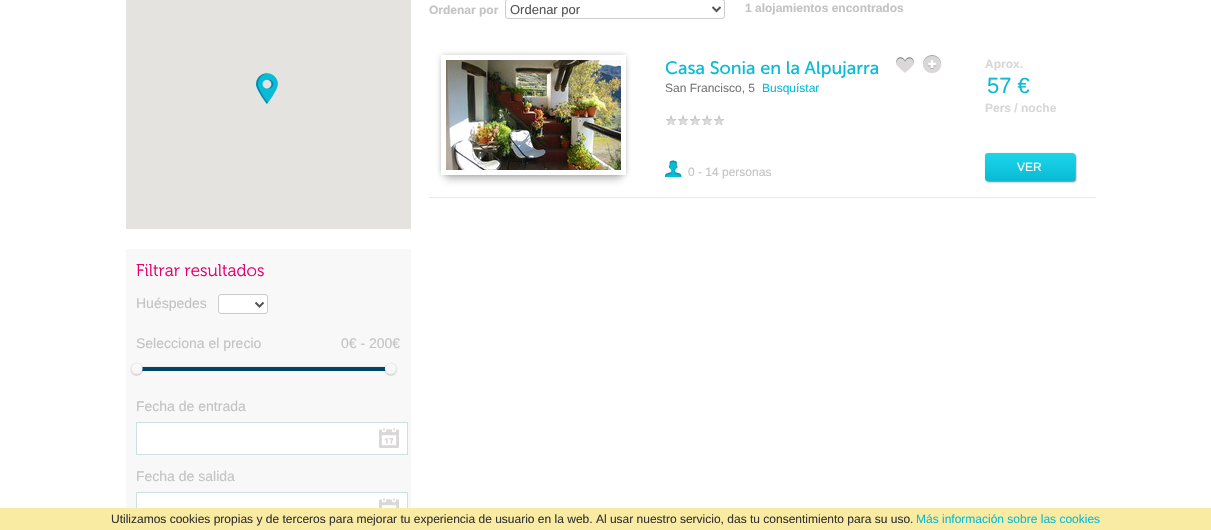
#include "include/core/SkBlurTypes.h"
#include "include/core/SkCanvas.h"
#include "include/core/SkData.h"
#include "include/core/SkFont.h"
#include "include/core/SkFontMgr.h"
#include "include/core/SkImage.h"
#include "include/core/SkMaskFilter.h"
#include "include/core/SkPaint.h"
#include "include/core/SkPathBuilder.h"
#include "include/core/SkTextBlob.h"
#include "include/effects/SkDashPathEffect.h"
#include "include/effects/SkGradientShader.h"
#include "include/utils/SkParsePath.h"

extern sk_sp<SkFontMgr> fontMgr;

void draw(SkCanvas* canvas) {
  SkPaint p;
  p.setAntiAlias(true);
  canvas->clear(SK_ColorWHITE);
  p.setStyle(SkPaint::kStroke_Style);
  p.setStrokeWidth(1);
  p.setColor(SkColorSetRGB(204, 204, 204));
  canvas->drawRoundRect(SkRect::MakeLTRB(505.5f, -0.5f, 724.5f, 18.5f), 2.5f, 2.5f, p);
  p.setStrokeWidth(2);
  p.setColor(SkColorSetRGB(85, 85, 85));
  canvas->drawPath(SkPathBuilder().moveTo(712.5f, 7).lineTo(716.5f, 11).lineTo(720.5f, 7).detach(), p);
  p.setStyle(SkPaint::kFill_Style);
  p.setColor(SkColorSetRGB(232, 232, 232));
  canvas->drawRect(SkRect::MakeLTRB(429, 197, 1096, 198), p);
  canvas->save();
  canvas->clipPath(SkPathBuilder(SkPathFillType::kEvenOdd).moveTo(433, 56).lineTo(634, 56).lineTo(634, 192).lineTo(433, 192).close().moveTo(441, 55).lineTo(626, 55).lineTo(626, 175).lineTo(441, 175).close().detach(), true);
  p.setColor(SkColorSetARGB(102, 100, 100, 100));
  p.setMaskFilter(SkMaskFilter::MakeBlur(kNormal_SkBlurStyle, 4));
  canvas->drawRect(SkRect::MakeLTRB(446, 69, 621, 179), p);
  p.setMaskFilter(nullptr);
  canvas->restore();
  canvas->save();
  canvas->clipPath(SkPathBuilder(SkPathFillType::kEvenOdd).moveTo(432, 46).lineTo(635, 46).lineTo(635, 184).lineTo(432, 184).close().moveTo(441, 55).lineTo(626, 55).lineTo(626, 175).lineTo(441, 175).close().detach(), true);
  p.setColor(SkColorSetARGB(128, 100, 100, 100));
  p.setMaskFilter(SkMaskFilter::MakeBlur(kNormal_SkBlurStyle, 3));
  canvas->drawRect(SkRect::MakeLTRB(442, 56, 625, 174), p);
  p.setMaskFilter(nullptr);
  canvas->restore();
  canvas->drawImageRect(SkImages::DeferredFromEncodedData(SkData::MakeFromFileName("images/1.png")), SkRect::MakeLTRB(446, 60, 621, 170), SkSamplingOptions());
  canvas->drawImageRect(SkImages::DeferredFromEncodedData(SkData::MakeFromFileName("images/2.png")), SkRect::MakeLTRB(896, 57, 914, 73), SkSamplingOptions());
  canvas->drawImageRect(SkImages::DeferredFromEncodedData(SkData::MakeFromFileName("images/3.png")), SkRect::MakeLTRB(923, 55, 942, 74), SkSamplingOptions());
  canvas->drawImageRect(SkImages::DeferredFromEncodedData(SkData::MakeFromFileName("images/4.png")), SkRect::MakeLTRB(665, 115, 671, 125), SkSamplingOptions());
  canvas->drawImageRect(SkImages::DeferredFromEncodedData(SkData::MakeFromFileName("images/5.png")), SkRect::MakeLTRB(671, 115, 677, 125), SkSamplingOptions());
  canvas->drawImageRect(SkImages::DeferredFromEncodedData(SkData::MakeFromFileName("images/4.png")), SkRect::MakeLTRB(677, 115, 683, 125), SkSamplingOptions());
  canvas->drawImageRect(SkImages::DeferredFromEncodedData(SkData::MakeFromFileName("images/5.png")), SkRect::MakeLTRB(683, 115, 689, 125), SkSamplingOptions());
  canvas->drawImageRect(SkImages::DeferredFromEncodedData(SkData::MakeFromFileName("images/4.png")), SkRect::MakeLTRB(689, 115, 695, 125), SkSamplingOptions());
  canvas->drawImageRect(SkImages::DeferredFromEncodedData(SkData::MakeFromFileName("images/5.png")), SkRect::MakeLTRB(695, 115, 701, 125), SkSamplingOptions());
  canvas->drawImageRect(SkImages::DeferredFromEncodedData(SkData::MakeFromFileName("images/4.png")), SkRect::MakeLTRB(701, 115, 707, 125), SkSamplingOptions());
  canvas->drawImageRect(SkImages::DeferredFromEncodedData(SkData::MakeFromFileName("images/5.png")), SkRect::MakeLTRB(707, 115, 713, 125), SkSamplingOptions());
  canvas->drawImageRect(SkImages::DeferredFromEncodedData(SkData::MakeFromFileName("images/4.png")), SkRect::MakeLTRB(713, 115, 719, 125), SkSamplingOptions());
  canvas->drawImageRect(SkImages::DeferredFromEncodedData(SkData::MakeFromFileName("images/5.png")), SkRect::MakeLTRB(719, 115, 725, 125), SkSamplingOptions());
  canvas->drawImageRect(SkImages::DeferredFromEncodedData(SkData::MakeFromFileName("images/6.png")), SkRect::MakeLTRB(665, 160, 682, 177), SkSamplingOptions());
  p.setColor(SkColorSetRGB(119, 119, 119));
  p.setMaskFilter(SkMaskFilter::MakeBlur(kNormal_SkBlurStyle, 1));
  canvas->drawRoundRect(SkRect::MakeLTRB(986, 154, 1076, 182), 3, 3, p);
  p.setMaskFilter(nullptr);
  {
    const SkColor colors[] = {SkColorSetRGB(28, 214, 234), SkColorSetRGB(9, 187, 213)};
    const float stops[] = {0, 1};
    const SkPoint ends[] = {{1030, 153}, {1030, 181}};
    p.setShader(SkGradientShader::MakeLinear(ends, colors, stops, 2, SkTileMode::kClamp));
    p.setAlpha(255);
  }
  canvas->drawRoundRect(SkRect::MakeLTRB(985, 153, 1075, 181), 3, 3, p);
  p.setShader(nullptr);
  p.setColor(SkColorSetRGB(229, 227, 223));
  canvas->drawRect(SkRect::MakeLTRB(126, 0, 411, 229), p);
  canvas->drawImageRect(SkImages::DeferredFromEncodedData(SkData::MakeFromFileName("images/7.png")), SkRect::MakeLTRB(256, 73, 278, 104), SkSamplingOptions());
  p.setColor(SkColorSetRGB(248, 248, 248));
  canvas->drawRect(SkRect::MakeLTRB(126, 249, 411, 508), p);
  p.setColor(SK_ColorWHITE);
  canvas->drawRoundRect(SkRect::MakeLTRB(218.5f, 294.5f, 267.5f, 313.5f), 2.5f, 2.5f, p);
  p.setStyle(SkPaint::kStroke_Style);
  p.setStrokeWidth(1);
  p.setColor(SkColorSetRGB(204, 204, 204));
  canvas->drawRoundRect(SkRect::MakeLTRB(218.5f, 294.5f, 267.5f, 313.5f), 2.5f, 2.5f, p);
  p.setStrokeWidth(2);
  p.setColor(SkColorSetRGB(85, 85, 85));
  canvas->drawPath(SkPathBuilder().moveTo(255.5f, 302.5f).lineTo(259.5f, 306.5f).lineTo(263.5f, 302.5f).detach(), p);
  p.setStrokeWidth(1);
  p.setColor(SkColorSetRGB(239, 239, 239));
  canvas->drawRect(SkRect::MakeLTRB(136.5f, 366.5f, 391.5f, 371.5f), p);
  p.setStyle(SkPaint::kFill_Style);
  p.setColor(SkColorSetRGB(0, 69, 99));
  canvas->drawRect(SkRect::MakeLTRB(137, 367, 391, 371), p);
  canvas->drawImageRect(SkImages::DeferredFromEncodedData(SkData::MakeFromFileName("images/8.png")), SkRect::MakeLTRB(130, 362, 143, 376), SkSamplingOptions());
  canvas->drawImageRect(SkImages::DeferredFromEncodedData(SkData::MakeFromFileName("images/9.png")), SkRect::MakeLTRB(384, 362, 398, 376), SkSamplingOptions());
  p.setColor(SK_ColorWHITE);
  canvas->drawRect(SkRect::MakeLTRB(137, 423, 407, 454), p);
  canvas->drawImageRect(SkImages::DeferredFromEncodedData(SkData::MakeFromFileName("images/10.png")), SkRect::MakeLTRB(379, 428, 399, 448), SkSamplingOptions());
  p.setStyle(SkPaint::kStroke_Style);
  p.setColor(SkColorSetRGB(207, 222, 222));
  canvas->drawRect(SkRect::MakeLTRB(136.5f, 422.5f, 407.5f, 454.5f), p);
  p.setStyle(SkPaint::kFill_Style);
  p.setColor(SK_ColorWHITE);
  canvas->drawRect(SkRect::MakeLTRB(137, 493, 407, 508), p);
  canvas->drawImageRect(SkImages::DeferredFromEncodedData(SkData::MakeFromFileName("images/11.png")), SkRect::MakeLTRB(379, 498, 399, 508), SkSamplingOptions());
  p.setStyle(SkPaint::kStroke_Style);
  p.setColor(SkColorSetRGB(207, 222, 222));
  canvas->drawRect(SkRect::MakeLTRB(136.5f, 492.5f, 407.5f, 524.5f), p);
  p.setStyle(SkPaint::kFill_Style);
  p.setColor(SkColorSetRGB(250, 235, 163));
  canvas->drawRect(SkRect::MakeLTRB(0, 508, 1211, 530), p);
  SkFont font1(fontMgr->matchFamilyStyle("Liberation Sans", SkFontStyle::Bold()), 12);
  font1.setSubpixel(true);
  p.setColor(SkColorSetRGB(195, 195, 195));
  canvas->drawString("Ordenar por", 429, 14, font1, p);
  SkFont font2(fontMgr->matchFamilyStyle("Liberation Sans", SkFontStyle::Normal()), 13);
  font2.setSubpixel(true);
  p.setColor(SkColorSetRGB(85, 85, 85));
  canvas->drawString("Ordenar por", 510, 14, font2, p);
  p.setColor(SkColorSetRGB(195, 195, 195));
  canvas->drawString("1 alojamientos encontrados", 745, 12, font1, p);
  SkFont font3(fontMgr->matchFamilyStyle("Museo Sans", SkFontStyle::Normal()), 18);
  font3.setSubpixel(true);
  p.setColor(SkColorSetRGB(9, 187, 213));
  canvas->drawString("Casa Sonia en la Alpujarra", 665, 74, font3, p);
  SkFont font4(fontMgr->matchFamilyStyle("Liberation Sans", SkFontStyle::Normal()), 12);
  font4.setSubpixel(true);
  p.setColor(SkColorSetRGB(119, 119, 119));
  canvas->drawString("San Francisco, 5", 665, 92, font4, p);
  p.setColor(SkColorSetRGB(9, 187, 213));
  canvas->drawString("Busquístar", 762, 92, font4, p);
  p.setColor(SkColorSetRGB(195, 195, 195));
  canvas->drawString("0 - 14 personas", 688, 176, font4, p);
  p.setColor(SkColorSetRGB(217, 215, 215));
  canvas->drawString("Aprox.", 985, 68, font1, p);
  SkFont font5(fontMgr->matchFamilyStyle("Liberation Sans", SkFontStyle::Normal()), 22);
  font5.setSubpixel(true);
  p.setColor(SkColorSetRGB(9, 187, 213));
  canvas->drawString("57 €", 987, 93, font5, p);
  p.setColor(SkColorSetRGB(217, 215, 215));
  canvas->drawString("Pers / noche", 985, 112, font1, p);
  p.setColor(SK_ColorWHITE);
  canvas->drawString("VER", 1017, 171, font4, p);
  SkFont font6(fontMgr->matchFamilyStyle("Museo", SkFontStyle(300, SkFontStyle::kNormal_Width, SkFontStyle::kUpright_Slant)), 17);
  font6.setSubpixel(true);
  p.setColor(SkColorSetRGB(231, 0, 107));
  canvas->drawString("Filtrar resultados", 136, 276, font6, p);
  SkFont font7(fontMgr->matchFamilyStyle("Liberation Sans", SkFontStyle::Normal()), 14);
  font7.setSubpixel(true);
  p.setColor(SkColorSetRGB(195, 195, 195));
  canvas->drawString("Huéspedes", 136, 308, font7, p);
  canvas->drawString("Selecciona el precio", 136, 348, font7, p);
  canvas->drawString("0€ - 200€", 341, 348, font7, p);
  canvas->drawString("Fecha de entrada", 136, 411, font7, p);
  canvas->drawString("Fecha de salida", 136, 481, font7, p);
  p.setColor(SkColorSetRGB(51, 51, 51));
  canvas->drawString("Utilizamos cookies propias y de terceros para mejorar tu experiencia de usuario en la web. Al usar nuestro servicio, das tu consentimiento para su uso.", 111, 523, font4, p);
  p.setColor(SkColorSetRGB(9, 187, 213));
  canvas->drawString("Más información sobre las cookies", 916, 523, font4, p);
}
